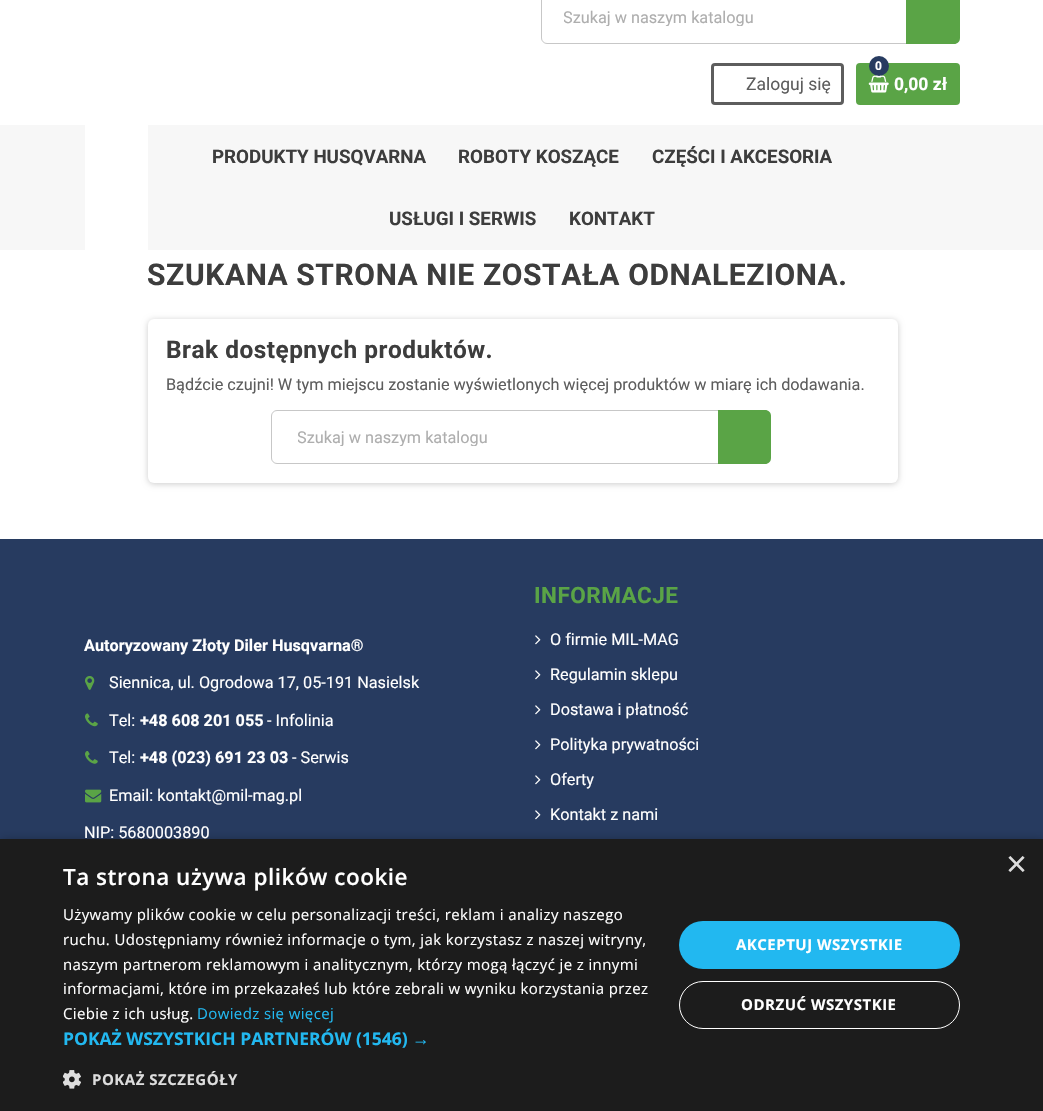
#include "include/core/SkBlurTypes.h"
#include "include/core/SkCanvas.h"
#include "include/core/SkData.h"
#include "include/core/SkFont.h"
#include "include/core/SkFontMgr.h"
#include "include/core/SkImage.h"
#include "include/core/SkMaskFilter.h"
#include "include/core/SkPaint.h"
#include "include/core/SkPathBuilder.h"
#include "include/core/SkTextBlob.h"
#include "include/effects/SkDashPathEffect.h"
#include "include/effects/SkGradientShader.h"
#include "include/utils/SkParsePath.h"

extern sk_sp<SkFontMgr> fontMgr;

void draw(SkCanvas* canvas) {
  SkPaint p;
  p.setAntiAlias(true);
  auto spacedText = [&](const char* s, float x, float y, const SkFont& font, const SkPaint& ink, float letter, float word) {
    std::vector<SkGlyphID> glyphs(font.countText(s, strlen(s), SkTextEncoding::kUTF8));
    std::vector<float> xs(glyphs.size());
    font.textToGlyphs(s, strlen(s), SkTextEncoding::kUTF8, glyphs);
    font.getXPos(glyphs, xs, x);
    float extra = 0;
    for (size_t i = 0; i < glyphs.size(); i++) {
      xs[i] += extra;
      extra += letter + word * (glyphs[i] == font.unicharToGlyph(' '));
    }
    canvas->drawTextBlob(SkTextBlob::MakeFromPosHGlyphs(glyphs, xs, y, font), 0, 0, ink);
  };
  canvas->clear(SK_ColorWHITE);
  p.setStyle(SkPaint::kStroke_Style);
  p.setStrokeWidth(1);
  p.setColor(SkColorSetRGB(199, 199, 199));
  canvas->drawRoundRect(SkRect::MakeLTRB(541.5f, -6.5f, 958.5f, 43.5f), 5.5f, 5.5f, p);
  p.setStyle(SkPaint::kFill_Style);
  p.setColor(SkColorSetRGB(90, 164, 70));
  canvas->drawPath(SkPathBuilder().moveTo(906, -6).lineTo(954, -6).cubicTo(957.5f, -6, 960, -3.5f, 960, 0).lineTo(960, 38).cubicTo(960, 41.5f, 957.5f, 44, 954, 44).lineTo(906, 44).close().detach(), p);
  p.setStyle(SkPaint::kStroke_Style);
  p.setStrokeWidth(3);
  p.setColor(SkColorSetRGB(93, 93, 93));
  canvas->drawRoundRect(SkRect::MakeLTRB(712.5f, 64.5f, 842.5f, 103.5f), 2.5f, 2.5f, p);
  p.setStyle(SkPaint::kFill_Style);
  p.setColor(SkColorSetRGB(90, 164, 70));
  canvas->drawRoundRect(SkRect::MakeLTRB(856, 63, 960, 105), 4, 4, p);
  canvas->drawImageRect(SkImages::DeferredFromEncodedData(SkData::MakeFromFileName("images/1.png")), SkRect::MakeLTRB(868, 75, 889, 93), SkSamplingOptions());
  p.setColor(SkColorSetRGB(39, 59, 96));
  canvas->drawCircle(879, 66, 10, p);
  p.setColor(SkColorSetRGB(247, 247, 247));
  canvas->drawRect(SkRect::MakeLTRB(0, 125, 1043, 250), p);
  p.setColor(SK_ColorWHITE);
  canvas->drawRect(SkRect::MakeLTRB(85, 125, 148, 250), p);
  p.setColor(SkColorSetARGB(51, 0, 0, 0));
  p.setMaskFilter(SkMaskFilter::MakeBlur(kNormal_SkBlurStyle, 3));
  canvas->drawRoundRect(SkRect::MakeLTRB(148, 320, 898, 484), 6, 6, p);
  p.setMaskFilter(nullptr);
  p.setColor(SK_ColorWHITE);
  canvas->drawRoundRect(SkRect::MakeLTRB(148, 319, 898, 483), 6, 6, p);
  p.setStyle(SkPaint::kStroke_Style);
  p.setStrokeWidth(1);
  p.setColor(SkColorSetRGB(199, 199, 199));
  canvas->drawRoundRect(SkRect::MakeLTRB(271.5f, 410.5f, 769.5f, 463.5f), 5.5f, 5.5f, p);
  p.setStyle(SkPaint::kFill_Style);
  p.setColor(SkColorSetRGB(90, 164, 70));
  canvas->drawPath(SkPathBuilder().moveTo(718, 410).lineTo(765, 410).cubicTo(768.5f, 410, 771, 412.5f, 771, 416).lineTo(771, 458).cubicTo(771, 461.5f, 768.5f, 464, 765, 464).lineTo(718, 464).close().detach(), p);
  p.setColor(SkColorSetRGB(39, 59, 96));
  canvas->drawRect(SkRect::MakeLTRB(0, 539, 1043, 839), p);
  canvas->drawImageRect(SkImages::DeferredFromEncodedData(SkData::MakeFromFileName("images/2.png")), SkRect::MakeLTRB(85, 676, 95, 690), SkSamplingOptions());
  canvas->drawImageRect(SkImages::DeferredFromEncodedData(SkData::MakeFromFileName("images/3.png")), SkRect::MakeLTRB(85, 713, 98, 727), SkSamplingOptions());
  canvas->drawImageRect(SkImages::DeferredFromEncodedData(SkData::MakeFromFileName("images/4.png")), SkRect::MakeLTRB(85, 751, 98, 764), SkSamplingOptions());
  canvas->drawImageRect(SkImages::DeferredFromEncodedData(SkData::MakeFromFileName("images/5.png")), SkRect::MakeLTRB(85, 789, 102, 803), SkSamplingOptions());
  canvas->drawImageRect(SkImages::DeferredFromEncodedData(SkData::MakeFromFileName("images/6.png")), SkRect::MakeLTRB(535, 635, 541, 645), SkSamplingOptions());
  canvas->drawImageRect(SkImages::DeferredFromEncodedData(SkData::MakeFromFileName("images/6.png")), SkRect::MakeLTRB(535, 670, 541, 680), SkSamplingOptions());
  canvas->drawImageRect(SkImages::DeferredFromEncodedData(SkData::MakeFromFileName("images/6.png")), SkRect::MakeLTRB(535, 705, 541, 715), SkSamplingOptions());
  canvas->drawImageRect(SkImages::DeferredFromEncodedData(SkData::MakeFromFileName("images/6.png")), SkRect::MakeLTRB(535, 740, 541, 750), SkSamplingOptions());
  canvas->drawImageRect(SkImages::DeferredFromEncodedData(SkData::MakeFromFileName("images/6.png")), SkRect::MakeLTRB(535, 775, 541, 785), SkSamplingOptions());
  canvas->drawImageRect(SkImages::DeferredFromEncodedData(SkData::MakeFromFileName("images/6.png")), SkRect::MakeLTRB(535, 810, 541, 820), SkSamplingOptions());
  p.setColor(SkColorSetARGB(89, 0, 0, 0));
  p.setMaskFilter(SkMaskFilter::MakeBlur(kNormal_SkBlurStyle, 5));
  canvas->drawRect(SkRect::MakeLTRB(1, 841, 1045, 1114), p);
  p.setMaskFilter(nullptr);
  p.setColor(SkColorSetRGB(28, 28, 28));
  canvas->drawRect(SkRect::MakeLTRB(0, 839, 1043, 1111), p);
  canvas->drawImageRect(SkImages::DeferredFromEncodedData(SkData::MakeFromFileName("images/7.png")), SkRect::MakeLTRB(63, 1070, 81, 1089), SkSamplingOptions());
  p.setColor(SkColorSetRGB(34, 184, 240));
  canvas->drawRoundRect(SkRect::MakeLTRB(679, 921, 960, 969), 24, 24, p);
  p.setStyle(SkPaint::kStroke_Style);
  p.setColor(SK_ColorWHITE);
  canvas->drawRoundRect(SkRect::MakeLTRB(679.5f, 981.5f, 959.5f, 1028.5f), 23.5f, 23.5f, p);
  canvas->save();
  canvas->clipRect(SkRect::MakeLTRB(564, 8, 891, 26));
  SkFont font1(fontMgr->matchFamilyStyle("Roboto", SkFontStyle::Normal()), 16.25f);
  font1.setSubpixel(true);
  p.setStyle(SkPaint::kFill_Style);
  p.setColor(SkColorSetRGB(174, 174, 174));
  canvas->drawString("Szukaj w naszym katalogu", 563, 23, font1, p);
  canvas->restore();
  SkFont font2(fontMgr->matchFamilyStyle("Roboto", SkFontStyle::Normal()), 17.5f);
  font2.setSubpixel(true);
  p.setColor(SkColorSetRGB(93, 93, 93));
  canvas->drawString("Zaloguj się", 746, 90, font2, p);
  SkFont font3(fontMgr->matchFamilyStyle("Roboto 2", SkFontStyle::Bold()), 12);
  font3.setSubpixel(true);
  p.setColor(SK_ColorWHITE);
  canvas->drawString("0", 875, 70, font3, p);
  SkFont font4(fontMgr->matchFamilyStyle("Roboto 2", SkFontStyle::Bold()), 17.5f);
  font4.setSubpixel(true);
  canvas->drawString("0,00 zł", 894, 90, font4, p);
  SkFont font5(fontMgr->matchFamilyStyle("Roboto", SkFontStyle::Bold()), 18.75f);
  font5.setSubpixel(true);
  p.setColor(SkColorSetRGB(61, 61, 61));
  canvas->drawString("PRODUKTY HUSQVARNA", 212, 163, font5, p);
  canvas->drawString("ROBOTY KOSZĄCE", 458, 163, font5, p);
  canvas->drawString("CZĘŚCI I AKCESORIA", 652, 163, font5, p);
  canvas->drawString("USŁUGI I SERWIS", 389, 225, font5, p);
  canvas->drawString("KONTAKT", 569, 225, font5, p);
  SkFont font6(fontMgr->matchFamilyStyle("Roboto", SkFontStyle::Bold()), 30);
  font6.setSubpixel(true);
  spacedText("SZUKANA STRONA NIE ZOSTAŁA ODNALEZIONA.", 147, 285, font6, p, 0.6f, 0);
  SkFont font7(fontMgr->matchFamilyStyle("Roboto", SkFontStyle::Bold()), 24.4f);
  font7.setSubpixel(true);
  spacedText("Brak dostępnych produktów.", 166, 358, font7, p, 0.5f, 0);
  p.setColor(SkColorSetRGB(93, 93, 93));
  canvas->drawString("Bądźcie czujni! W tym miejscu zostanie wyświetlonych więcej produktów w miarę ich dodawania.", 166, 390, font1, p);
  canvas->save();
  canvas->clipRect(SkRect::MakeLTRB(298, 428, 703, 446));
  p.setColor(SkColorSetRGB(174, 174, 174));
  canvas->drawString("Szukaj w naszym katalogu", 297, 443, font1, p);
  canvas->restore();
  SkFont font8(fontMgr->matchFamilyStyle("Roboto 2", SkFontStyle::Bold()), 16.25f);
  font8.setSubpixel(true);
  p.setColor(SK_ColorWHITE);
  canvas->drawString("Autoryzowany Złoty Diler Husqvarna®", 84, 651, font8, p);
  canvas->drawString("Siennica, ul. Ogrodowa 17, 05-191 Nasielsk", 109, 688, font1, p);
  canvas->drawString("Tel:", 109, 726, font1, p);
  canvas->drawString("+48 608 201 055", 140, 726, font8, p);
  canvas->drawString("- Infolinia", 267, 726, font1, p);
  canvas->drawString("Tel:", 109, 763, font1, p);
  canvas->drawString("+48 (023) 691 23 03", 140, 763, font8, p);
  canvas->drawString("- Serwis", 292, 763, font1, p);
  canvas->drawString("Email: kontakt@mil-mag.pl", 109, 801, font1, p);
  canvas->drawString("NIP: 5680003890", 84, 838, font1, p);
  SkFont font9(fontMgr->matchFamilyStyle("Roboto", SkFontStyle::Bold()), 22.5f);
  font9.setSubpixel(true);
  p.setColor(SkColorSetRGB(90, 164, 70));
  spacedText("INFORMACJE", 534, 603, font9, p, 0.5f, 0);
  p.setColor(SK_ColorWHITE);
  canvas->drawString("O firmie MIL-MAG", 550, 645, font1, p);
  canvas->drawString("Regulamin sklepu", 550, 680, font1, p);
  canvas->drawString("Dostawa i płatność", 550, 715, font1, p);
  canvas->drawString("Polityka prywatności", 550, 750, font1, p);
  canvas->drawString("Oferty", 550, 785, font1, p);
  canvas->drawString("Kontakt z nami", 550, 820, font1, p);
  SkFont font10(fontMgr->matchFamilyStyle("Liberation Sans", SkFontStyle::Normal()), 36);
  font10.setSubpixel(true);
  p.setColor(SkColorSetRGB(221, 221, 221));
  canvas->drawString("×", 1006, 876, font10, p);
  SkFont font11(fontMgr->matchFamilyStyle("Open Sans", SkFontStyle(600, SkFontStyle::kNormal_Width, SkFontStyle::kUpright_Slant)), 22.5f);
  font11.setSubpixel(true);
  p.setColor(SK_ColorWHITE);
  spacedText("Ta strona używa plików cookie", 63, 885, font11, p, 0.5f, 0);
  SkFont font12(fontMgr->matchFamilyStyle("Open Sans", SkFontStyle::Normal()), 15);
  font12.setSubpixel(true);
  spacedText("Używamy plików cookie w celu personalizacji treści, reklam i analizy naszego", 63, 920, font12, p, 0.38f, 0);
  spacedText("ruchu. Udostępniamy również informacje o tym, jak korzystasz z naszej witryny,", 63, 945, font12, p, 0.38f, 0);
  spacedText("naszym partnerom reklamowym i analitycznym, którzy mogą łączyć je z innymi", 63, 970, font12, p, 0.38f, 0);
  spacedText("informacjami, które im przekazałeś lub które zebrali w wyniku korzystania przez", 63, 994, font12, p, 0.38f, 0);
  spacedText("Ciebie z ich usług.", 63, 1019, font12, p, 0.38f, 0);
  p.setColor(SkColorSetRGB(34, 184, 240));
  spacedText("Dowiedz się więcej", 197, 1019, font12, p, 0.38f, 0);
  SkFont font13(fontMgr->matchFamilyStyle("Open Sans", SkFontStyle::Bold()), 17.5f);
  font13.setSubpixel(true);
  canvas->drawString("POKAŻ WSZYSTKICH PARTNERÓW (1546)", 63, 1045, font13, p);
  SkFont font14(fontMgr->matchFamilyStyle("Liberation Sans", SkFontStyle::Bold()), 17.5f);
  font14.setSubpixel(true);
  canvas->drawString("→", 412, 1045, font14, p);
  SkFont font15(fontMgr->matchFamilyStyle("Open Sans", SkFontStyle::Bold()), 15);
  font15.setSubpixel(true);
  p.setColor(SkColorSetRGB(221, 221, 221));
  spacedText("POKAŻ SZCZEGÓŁY", 92, 1085, font15, p, 0.5f, 0);
  p.setColor(SK_ColorWHITE);
  spacedText("AKCEPTUJ WSZYSTKIE", 736, 950, font15, p, 0.5f, 0);
  spacedText("ODRZUĆ WSZYSTKIE", 741, 1010, font15, p, 0.5f, 0);
}
